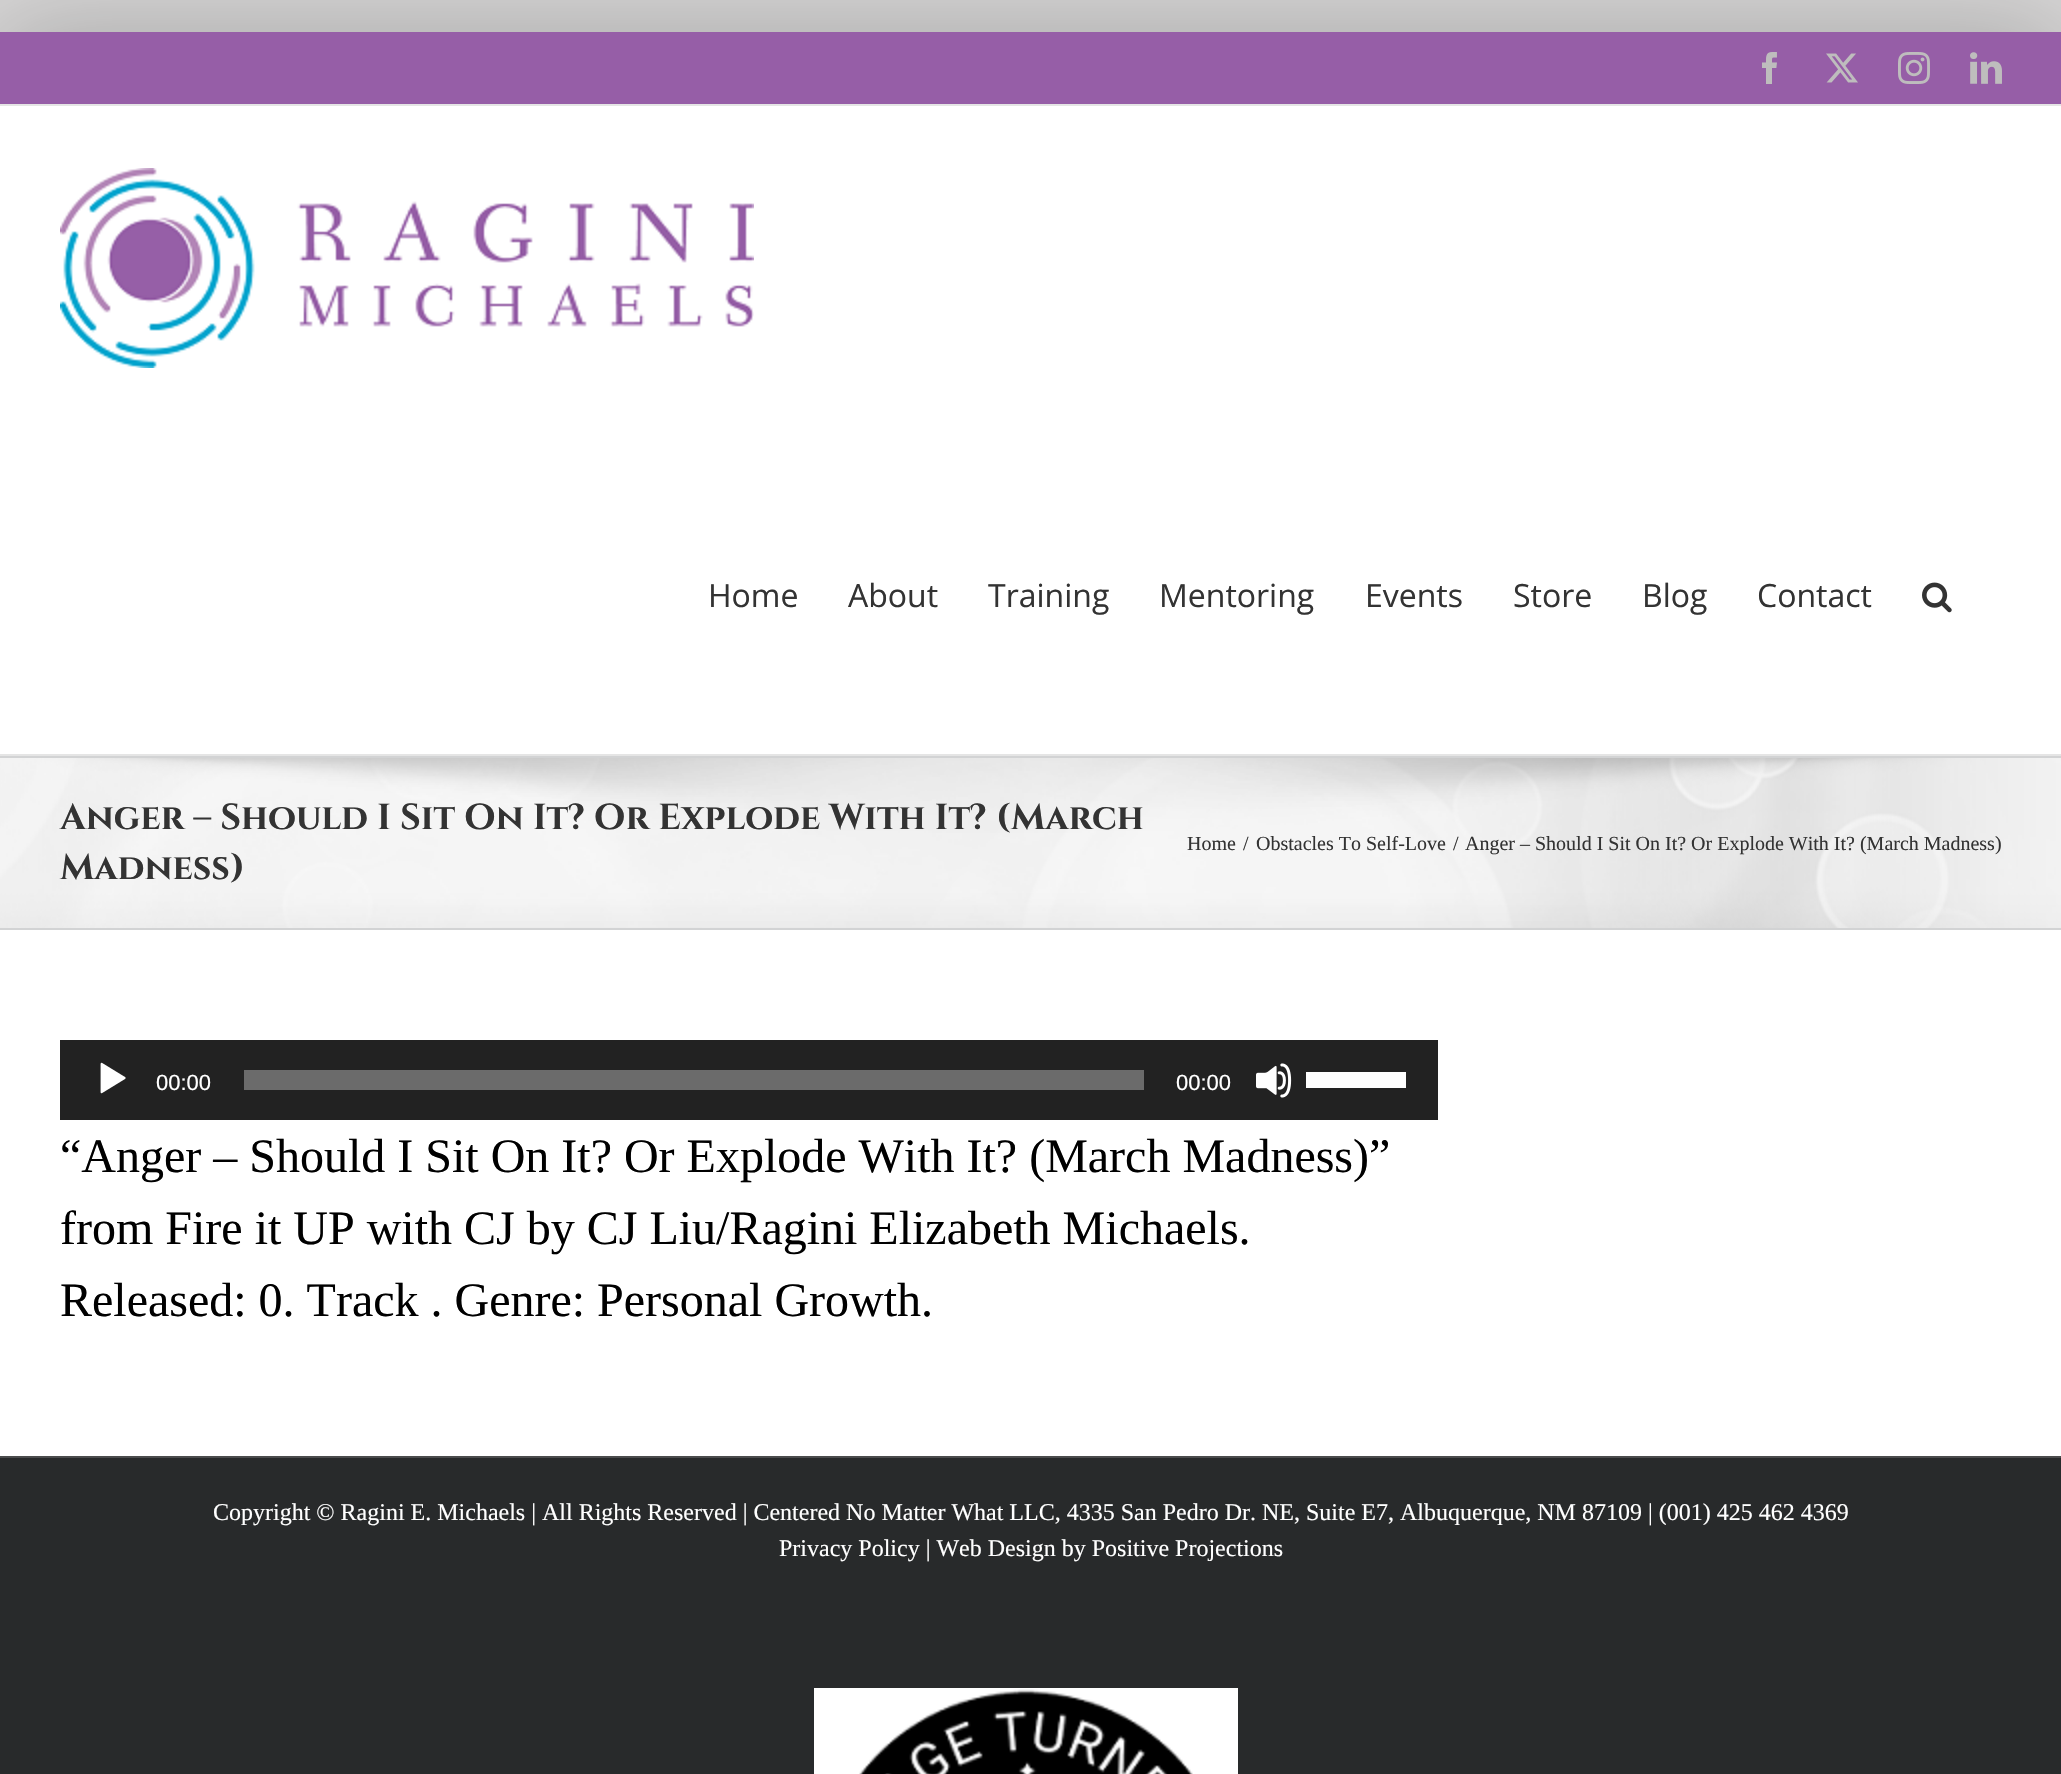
#include "include/core/SkBlurTypes.h"
#include "include/core/SkCanvas.h"
#include "include/core/SkData.h"
#include "include/core/SkFont.h"
#include "include/core/SkFontMgr.h"
#include "include/core/SkImage.h"
#include "include/core/SkMaskFilter.h"
#include "include/core/SkPaint.h"
#include "include/core/SkPathBuilder.h"
#include "include/core/SkTextBlob.h"
#include "include/effects/SkDashPathEffect.h"
#include "include/effects/SkGradientShader.h"
#include "include/utils/SkParsePath.h"

extern sk_sp<SkFontMgr> fontMgr;

void draw(SkCanvas* canvas) {
  SkPaint p;
  p.setAntiAlias(true);
  canvas->clear(SkColorSetRGB(215, 214, 214));
  p.setColor(SkColorSetARGB(56, 0, 0, 0));
  p.setMaskFilter(SkMaskFilter::MakeBlur(kNormal_SkBlurStyle, 50));
  canvas->drawRect(SkRect::MakeLTRB(-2, 30, 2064, 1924), p);
  p.setMaskFilter(nullptr);
  p.setColor(SkColorSetRGB(150, 94, 167));
  canvas->drawRect(SkRect::MakeLTRB(0, 32, 2061, 104), p);
  p.setColor(SkColorSetRGB(229, 229, 229));
  canvas->drawRect(SkRect::MakeLTRB(0, 104, 2061, 106), p);
  canvas->drawImageRect(SkImages::DeferredFromEncodedData(SkData::MakeFromFileName("images/1.png")), SkRect::MakeLTRB(1762, 52, 1777, 84), SkSamplingOptions());
  canvas->drawImageRect(SkImages::DeferredFromEncodedData(SkData::MakeFromFileName("images/2.png")), SkRect::MakeLTRB(1826, 53, 1858, 83), SkSamplingOptions());
  canvas->drawImageRect(SkImages::DeferredFromEncodedData(SkData::MakeFromFileName("images/3.png")), SkRect::MakeLTRB(1898, 52, 1930, 84), SkSamplingOptions());
  canvas->drawImageRect(SkImages::DeferredFromEncodedData(SkData::MakeFromFileName("images/4.png")), SkRect::MakeLTRB(1970, 52, 2002, 84), SkSamplingOptions());
  p.setColor(SK_ColorWHITE);
  canvas->drawRect(SkRect::MakeLTRB(0, 106, 2061, 754), p);
  p.setColor(SkColorSetRGB(229, 229, 229));
  canvas->drawRect(SkRect::MakeLTRB(0, 754, 2061, 756), p);
  canvas->drawImageRect(SkImages::DeferredFromEncodedData(SkData::MakeFromFileName("images/5.png")), SkRect::MakeLTRB(60, 168, 754, 368), SkSamplingOptions());
  canvas->drawImageRect(SkImages::DeferredFromEncodedData(SkData::MakeFromFileName("images/6.png")), SkRect::MakeLTRB(1922, 582, 1952, 613), SkSamplingOptions());
  p.setColor(SkColorSetRGB(246, 246, 246));
  canvas->drawRect(SkRect::MakeLTRB(0, 758, 2061, 928), p);
  canvas->drawImageRect(SkImages::DeferredFromEncodedData(SkData::MakeFromFileName("images/7.png")), SkRect::MakeLTRB(0, 758, 2061, 928), SkSamplingOptions());
  p.setColor(SkColorSetRGB(210, 211, 212));
  canvas->drawRect(SkRect::MakeLTRB(0, 756, 2061, 758), p);
  canvas->drawRect(SkRect::MakeLTRB(0, 928, 2061, 930), p);
  p.setColor(SK_ColorWHITE);
  canvas->drawRect(SkRect::MakeLTRB(0, 930, 2061, 1456), p);
  p.setColor(SkColorSetRGB(34, 34, 34));
  canvas->drawRect(SkRect::MakeLTRB(60, 1040, 1438, 1120), p);
  canvas->drawImageRect(SkImages::DeferredFromEncodedData(SkData::MakeFromFileName("images/8.png")), SkRect::MakeLTRB(100, 1062, 126, 1094), SkSamplingOptions());
  p.setColor(SkColorSetRGB(107, 107, 107));
  canvas->drawRect(SkRect::MakeLTRB(244, 1070, 1144, 1090), p);
  canvas->drawImageRect(SkImages::DeferredFromEncodedData(SkData::MakeFromFileName("images/9.png")), SkRect::MakeLTRB(1256, 1063, 1292, 1098), SkSamplingOptions());
  p.setColor(SK_ColorWHITE);
  canvas->drawRect(SkRect::MakeLTRB(1306, 1072, 1406, 1088), p);
  p.setColor(SkColorSetRGB(40, 42, 43));
  canvas->drawRect(SkRect::MakeLTRB(0, 1458, 2061, 1774), p);
  p.setColor(SkColorSetRGB(75, 76, 77));
  canvas->drawRect(SkRect::MakeLTRB(0, 1456, 2061, 1458), p);
  canvas->drawImageRect(SkImages::DeferredFromEncodedData(SkData::MakeFromFileName("images/10.png")), SkRect::MakeLTRB(814, 1688, 1238, 1774), SkSamplingOptions());
  SkFont font1(fontMgr->matchFamilyStyle("Open Sans", SkFontStyle::Normal()), 32);
  font1.setSubpixel(true);
  p.setColor(SkColorSetRGB(51, 51, 51));
  canvas->drawString("Home", 708, 607, font1, p);
  canvas->drawString("About", 848, 607, font1, p);
  canvas->drawString("Training", 988, 607, font1, p);
  canvas->drawString("Mentoring", 1159, 607, font1, p);
  canvas->drawString("Events", 1365, 607, font1, p);
  canvas->drawString("Store", 1513, 607, font1, p);
  canvas->drawString("Blog", 1642, 607, font1, p);
  canvas->drawString("Contact", 1757, 607, font1, p);
  SkFont font2(fontMgr->matchFamilyStyle("Cinzel", SkFontStyle::Bold()), 36);
  font2.setSubpixel(true);
  canvas->drawString("Anger – Should I Sit On It? Or Explode With It? (March", 60, 829, font2, p);
  canvas->drawString("Madness)", 60, 879, font2, p);
  SkFont font3(fontMgr->matchFamilyStyle("Liberation Serif", SkFontStyle::Normal()), 20);
  font3.setSubpixel(true);
  canvas->drawString("Home", 1187, 850, font3, p);
  canvas->drawString("/", 1243, 850, font3, p);
  canvas->drawString("Obstacles To Self-Love", 1256, 850, font3, p);
  canvas->drawString("/", 1453, 850, font3, p);
  canvas->drawString("Anger – Should I Sit On It? Or Explode With It? (March Madness)", 1465, 850, font3, p);
  SkFont font4(fontMgr->matchFamilyStyle("Liberation Sans", SkFontStyle::Normal()), 22);
  font4.setSubpixel(true);
  p.setColor(SK_ColorWHITE);
  canvas->drawString("00:00", 156, 1090, font4, p);
  canvas->drawString("00:00", 1176, 1090, font4, p);
  SkFont font5(fontMgr->matchFamilyStyle("Liberation Serif", SkFontStyle::Normal()), 48);
  font5.setSubpixel(true);
  p.setColor(SK_ColorBLACK);
  canvas->drawString("“Anger – Should I Sit On It? Or Explode With It? (March Madness)”", 60, 1172, font5, p);
  canvas->drawString("from Fire it UP with CJ by CJ Liu/Ragini Elizabeth Michaels.", 60, 1244, font5, p);
  canvas->drawString("Released: 0. Track . Genre: Personal Growth.", 60, 1316, font5, p);
  SkFont font6(fontMgr->matchFamilyStyle("Liberation Serif", SkFontStyle::Normal()), 24);
  font6.setSubpixel(true);
  p.setColor(SK_ColorWHITE);
  canvas->drawString("Copyright © Ragini E. Michaels | All Rights Reserved | Centered No Matter What LLC, 4335 San Pedro Dr. NE, Suite E7, Albuquerque, NM 87109 | (001) 425 462 4369", 213, 1520, font6, p);
  canvas->drawString("Privacy Policy | Web Design by Positive Projections", 779, 1556, font6, p);
}
